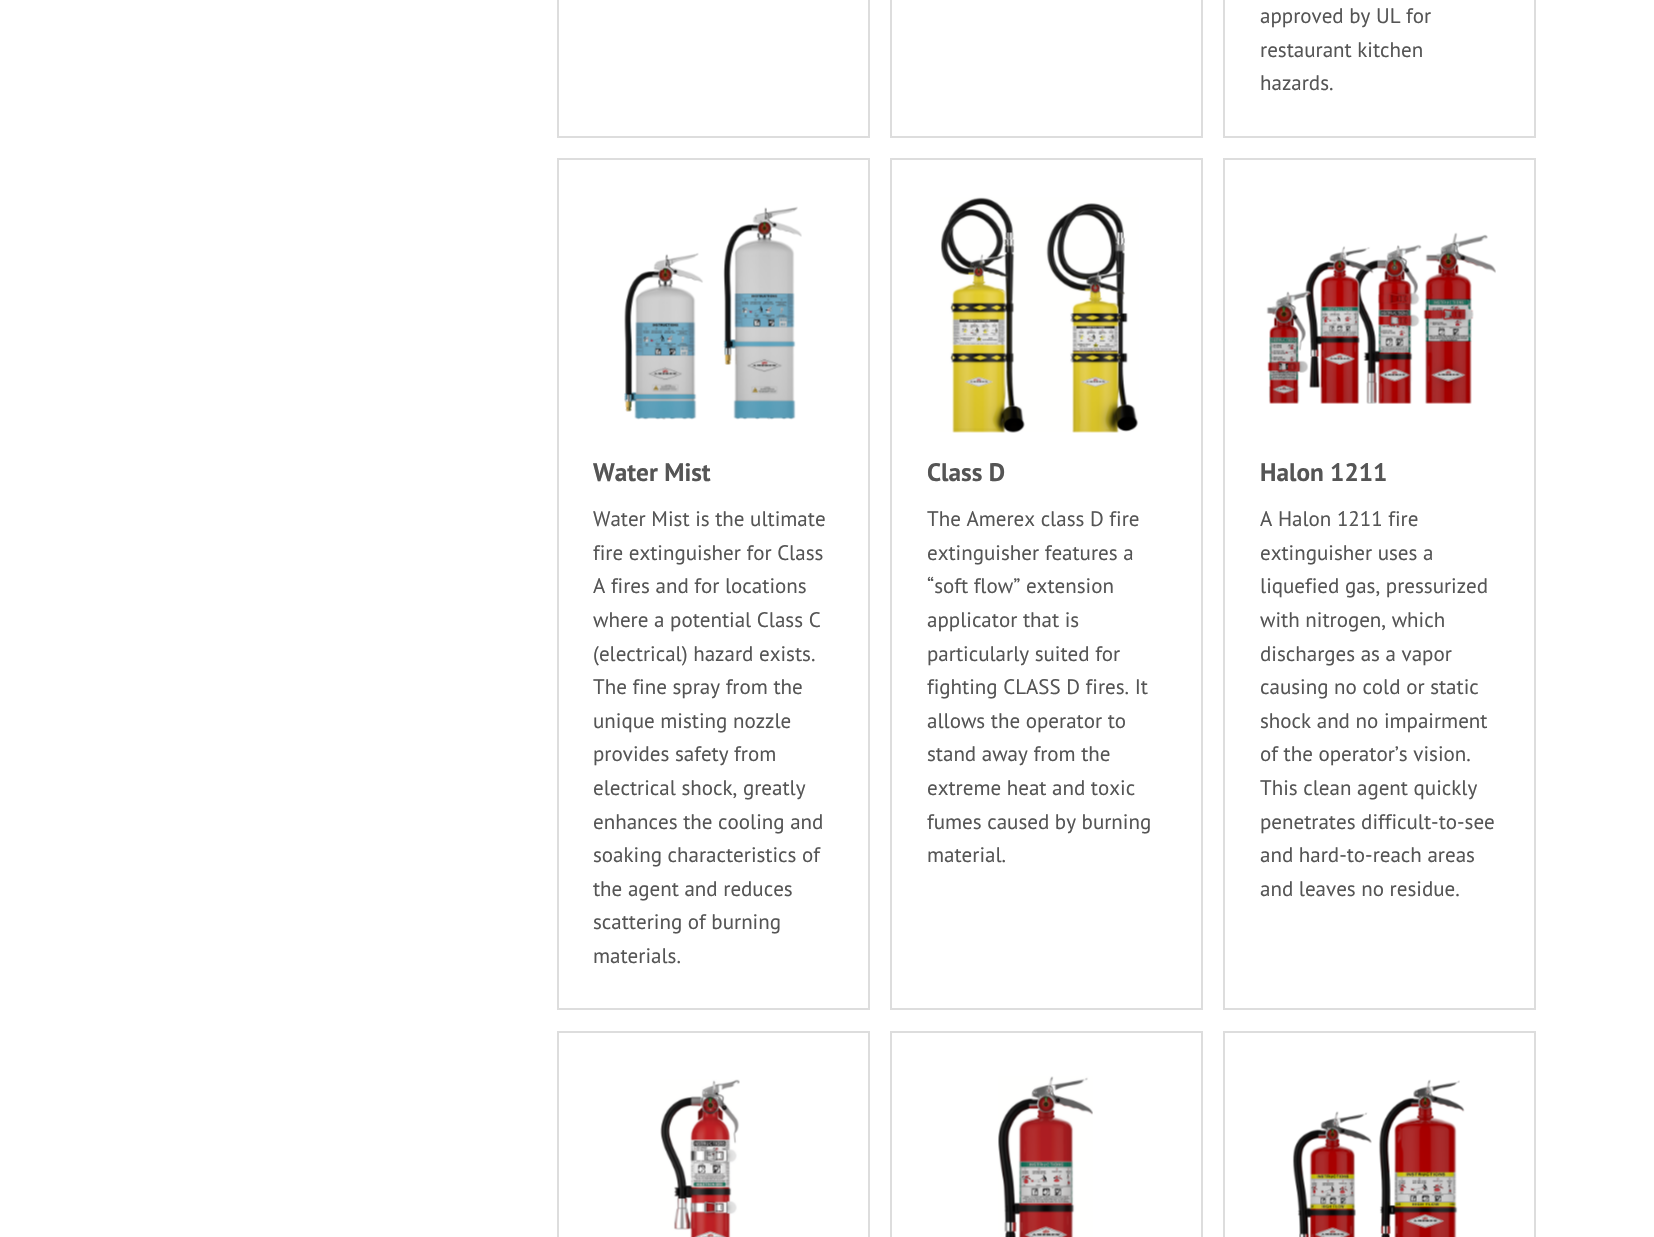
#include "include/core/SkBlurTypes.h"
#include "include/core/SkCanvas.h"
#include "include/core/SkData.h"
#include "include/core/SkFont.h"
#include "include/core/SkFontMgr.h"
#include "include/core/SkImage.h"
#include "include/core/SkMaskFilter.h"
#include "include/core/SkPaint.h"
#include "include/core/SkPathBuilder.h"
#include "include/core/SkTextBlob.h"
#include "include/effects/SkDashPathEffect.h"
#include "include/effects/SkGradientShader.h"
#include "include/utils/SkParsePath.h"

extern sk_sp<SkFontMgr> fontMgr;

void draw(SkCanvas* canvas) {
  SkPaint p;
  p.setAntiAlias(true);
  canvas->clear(SK_ColorWHITE);
  p.setStyle(SkPaint::kStroke_Style);
  p.setStrokeWidth(2);
  p.setColor(SkColorSetRGB(221, 221, 221));
  canvas->drawRect(SkRect::MakeLTRB(558, -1, 869, 137), p);
  canvas->drawRect(SkRect::MakeLTRB(891, -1, 1202, 137), p);
  canvas->drawRect(SkRect::MakeLTRB(1224, -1, 1535, 137), p);
  canvas->drawRect(SkRect::MakeLTRB(558, 159, 869, 1009), p);
  canvas->drawImageRect(SkImages::DeferredFromEncodedData(SkData::MakeFromFileName("images/1.png")), SkRect::MakeLTRB(624, 206, 802, 420), SkSamplingOptions());
  canvas->drawRect(SkRect::MakeLTRB(891, 159, 1202, 1009), p);
  canvas->drawImageRect(SkImages::DeferredFromEncodedData(SkData::MakeFromFileName("images/2.png")), SkRect::MakeLTRB(940, 197, 1139, 433), SkSamplingOptions());
  canvas->drawRect(SkRect::MakeLTRB(1224, 159, 1535, 1009), p);
  canvas->drawImageRect(SkImages::DeferredFromEncodedData(SkData::MakeFromFileName("images/3.png")), SkRect::MakeLTRB(1266, 232, 1496, 404), SkSamplingOptions());
  canvas->drawRect(SkRect::MakeLTRB(558, 1032, 869, 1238), p);
  canvas->drawImageRect(SkImages::DeferredFromEncodedData(SkData::MakeFromFileName("images/4.png")), SkRect::MakeLTRB(660, 1079, 740, 1237), SkSamplingOptions());
  canvas->drawRect(SkRect::MakeLTRB(891, 1032, 1202, 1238), p);
  canvas->drawImageRect(SkImages::DeferredFromEncodedData(SkData::MakeFromFileName("images/5.png")), SkRect::MakeLTRB(998, 1076, 1093, 1237), SkSamplingOptions());
  canvas->drawRect(SkRect::MakeLTRB(1224, 1032, 1535, 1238), p);
  canvas->drawImageRect(SkImages::DeferredFromEncodedData(SkData::MakeFromFileName("images/6.png")), SkRect::MakeLTRB(1292, 1079, 1465, 1237), SkSamplingOptions());
  SkFont font1(fontMgr->matchFamilyStyle("PT Sans", SkFontStyle::Normal()), 21);
  font1.setSubpixel(true);
  p.setStyle(SkPaint::kFill_Style);
  p.setColor(SkColorSetRGB(85, 85, 85));
  canvas->drawString("approved by UL for", 1260, 23, font1, p);
  canvas->drawString("restaurant kitchen", 1260, 57, font1, p);
  canvas->drawString("hazards.", 1260, 90, font1, p);
  SkFont font2(fontMgr->matchFamilyStyle("PT Sans", SkFontStyle::Bold()), 25.25f);
  font2.setSubpixel(true);
  canvas->drawString("Water Mist", 593, 481, font2, p);
  canvas->drawString("Water Mist is the ultimate", 593, 526, font1, p);
  canvas->drawString("fire extinguisher for Class", 593, 560, font1, p);
  canvas->drawString("A fires and for locations", 593, 593, font1, p);
  canvas->drawString("where a potential Class C", 593, 627, font1, p);
  canvas->drawString("(electrical) hazard exists.", 593, 661, font1, p);
  canvas->drawString("The fine spray from the", 593, 694, font1, p);
  canvas->drawString("unique misting nozzle", 593, 728, font1, p);
  canvas->drawString("provides safety from", 593, 761, font1, p);
  canvas->drawString("electrical shock, greatly", 593, 795, font1, p);
  canvas->drawString("enhances the cooling and", 593, 829, font1, p);
  canvas->drawString("soaking characteristics of", 593, 862, font1, p);
  canvas->drawString("the agent and reduces", 593, 896, font1, p);
  canvas->drawString("scattering of burning", 593, 929, font1, p);
  canvas->drawString("materials.", 593, 963, font1, p);
  canvas->drawString("Class D", 927, 481, font2, p);
  canvas->drawString("The Amerex class D fire", 927, 526, font1, p);
  canvas->drawString("extinguisher features a", 927, 560, font1, p);
  canvas->drawString("“soft flow” extension", 927, 593, font1, p);
  canvas->drawString("applicator that is", 927, 627, font1, p);
  canvas->drawString("particularly suited for", 927, 661, font1, p);
  canvas->drawString("fighting CLASS D fires. It", 927, 694, font1, p);
  canvas->drawString("allows the operator to", 927, 728, font1, p);
  canvas->drawString("stand away from the", 927, 761, font1, p);
  canvas->drawString("extreme heat and toxic", 927, 795, font1, p);
  canvas->drawString("fumes caused by burning", 927, 829, font1, p);
  canvas->drawString("material.", 927, 862, font1, p);
  canvas->drawString("Halon 1211", 1260, 481, font2, p);
  canvas->drawString("A Halon 1211 fire", 1260, 526, font1, p);
  canvas->drawString("extinguisher uses a", 1260, 560, font1, p);
  canvas->drawString("liquefied gas, pressurized", 1260, 593, font1, p);
  canvas->drawString("with nitrogen, which", 1260, 627, font1, p);
  canvas->drawString("discharges as a vapor", 1260, 661, font1, p);
  canvas->drawString("causing no cold or static", 1260, 694, font1, p);
  canvas->drawString("shock and no impairment", 1260, 728, font1, p);
  canvas->drawString("of the operator’s vision.", 1260, 761, font1, p);
  canvas->drawString("This clean agent quickly", 1260, 795, font1, p);
  canvas->drawString("penetrates difficult-to-see", 1260, 829, font1, p);
  canvas->drawString("and hard-to-reach areas", 1260, 862, font1, p);
  canvas->drawString("and leaves no residue.", 1260, 896, font1, p);
}
